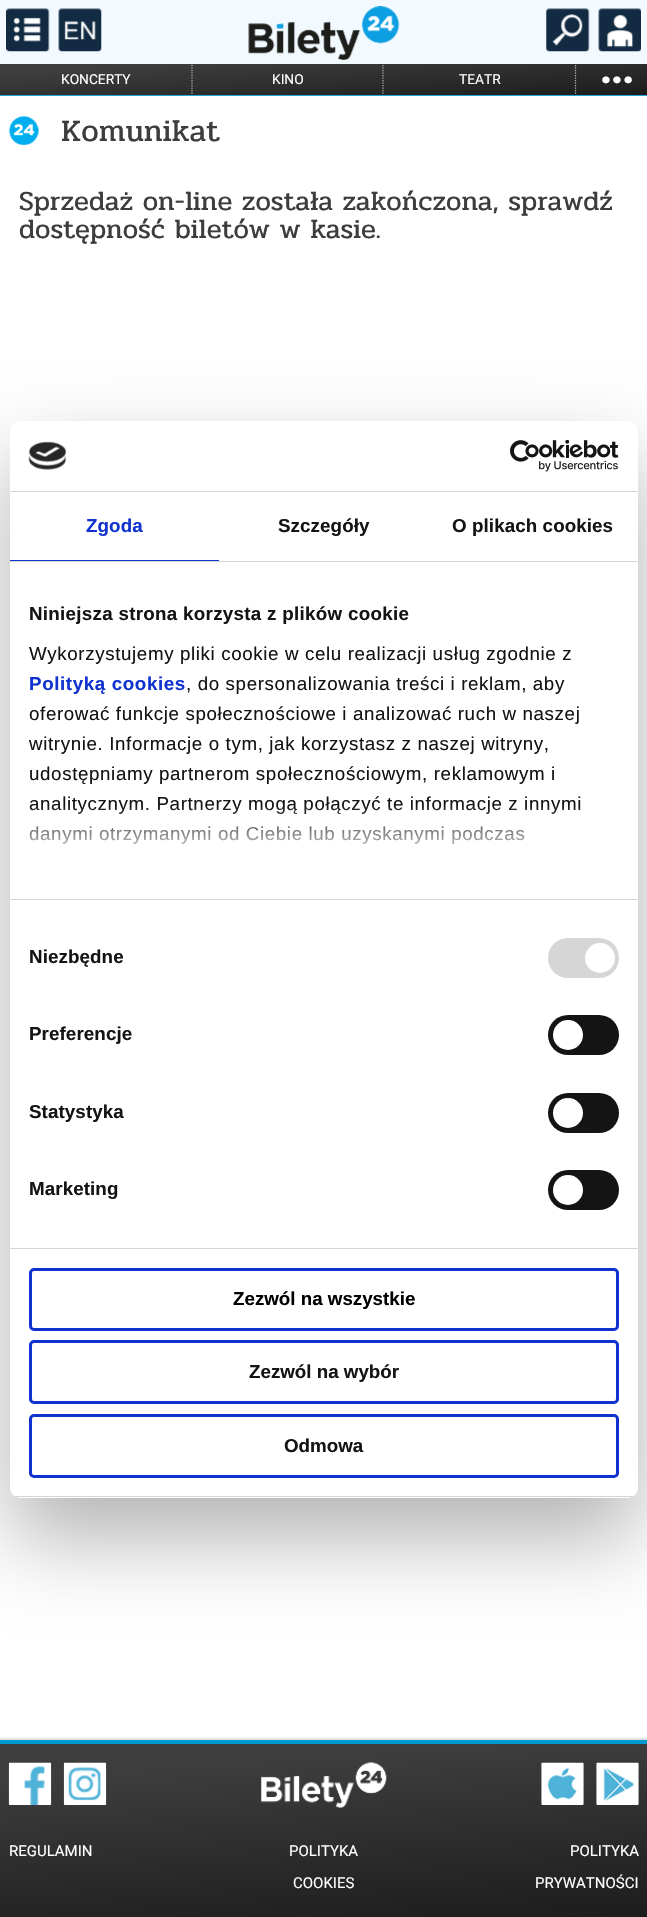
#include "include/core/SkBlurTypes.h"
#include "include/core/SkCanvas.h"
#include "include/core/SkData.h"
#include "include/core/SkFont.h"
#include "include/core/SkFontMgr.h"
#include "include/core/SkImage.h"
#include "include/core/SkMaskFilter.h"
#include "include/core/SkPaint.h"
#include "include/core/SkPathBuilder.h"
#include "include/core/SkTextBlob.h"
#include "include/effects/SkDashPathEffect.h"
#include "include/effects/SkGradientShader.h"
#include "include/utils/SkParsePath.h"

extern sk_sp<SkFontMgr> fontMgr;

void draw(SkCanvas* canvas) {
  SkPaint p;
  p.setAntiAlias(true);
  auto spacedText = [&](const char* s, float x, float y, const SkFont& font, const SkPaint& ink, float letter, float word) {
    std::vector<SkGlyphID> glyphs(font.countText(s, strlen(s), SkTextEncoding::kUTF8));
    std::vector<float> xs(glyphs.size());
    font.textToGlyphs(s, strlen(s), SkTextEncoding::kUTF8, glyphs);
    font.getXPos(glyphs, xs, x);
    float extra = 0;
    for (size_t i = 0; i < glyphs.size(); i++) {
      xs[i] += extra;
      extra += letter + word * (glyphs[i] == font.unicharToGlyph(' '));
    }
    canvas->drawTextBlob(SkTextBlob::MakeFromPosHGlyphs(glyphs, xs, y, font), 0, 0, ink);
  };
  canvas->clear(SK_ColorWHITE);
  p.setColor(SkColorSetRGB(242, 250, 255));
  canvas->drawRect(SkRect::MakeLTRB(0, 0, 647, 64), p);
  canvas->drawImageRect(SkImages::DeferredFromEncodedData(SkData::MakeFromFileName("images/1.png")), SkRect::MakeLTRB(6, 8, 50, 52), SkSamplingOptions());
  canvas->drawImageRect(SkImages::DeferredFromEncodedData(SkData::MakeFromFileName("images/2.png")), SkRect::MakeLTRB(58, 8, 102, 52), SkSamplingOptions());
  canvas->drawImageRect(SkImages::DeferredFromEncodedData(SkData::MakeFromFileName("images/3.png")), SkRect::MakeLTRB(248, 6, 400, 60), SkSamplingOptions());
  canvas->drawImageRect(SkImages::DeferredFromEncodedData(SkData::MakeFromFileName("images/4.png")), SkRect::MakeLTRB(546, 8, 590, 52), SkSamplingOptions());
  canvas->drawImageRect(SkImages::DeferredFromEncodedData(SkData::MakeFromFileName("images/5.png")), SkRect::MakeLTRB(598, 8, 641, 52), SkSamplingOptions());
  {
    const SkColor colors[] = {SkColorSetRGB(61, 61, 61), SkColorSetRGB(28, 28, 28)};
    const float stops[] = {0.17f, 1};
    const SkPoint ends[] = {{321, 41}, {326, 117}};
    p.setShader(SkGradientShader::MakeLinear(ends, colors, stops, 2, SkTileMode::kClamp));
    p.setAlpha(255);
  }
  canvas->drawRect(SkRect::MakeLTRB(0, 64, 647, 95), p);
  canvas->save();
  canvas->clipRect(SkRect::MakeLTRB(0, 64, 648, 95));
  p.setStyle(SkPaint::kStroke_Style);
  p.setStrokeWidth(1.2f);
  p.setShader(nullptr);
  p.setColor(SkColorSetRGB(184, 184, 184));
  p.setPathEffect(SkDashPathEffect::Make({{1.25f, 1.25f}}, 0));
  canvas->drawPath(SkPathBuilder().moveTo(192, 65).lineTo(192, 102.5f).detach(), p);
  p.setPathEffect(nullptr);
  p.setPathEffect(SkDashPathEffect::Make({{1.25f, 1.25f}}, 0));
  canvas->drawPath(SkPathBuilder().moveTo(575.5f, 65).lineTo(575.5f, 102.5f).detach(), p);
  p.setPathEffect(nullptr);
  p.setPathEffect(SkDashPathEffect::Make({{1.25f, 1.25f}}, 0));
  canvas->drawPath(SkPathBuilder().moveTo(383, 65).lineTo(383, 102.5f).detach(), p);
  p.setPathEffect(nullptr);
  canvas->restore();
  p.setStyle(SkPaint::kFill_Style);
  p.setColor(SkColorSetRGB(31, 165, 214));
  canvas->drawRect(SkRect::MakeLTRB(0, 95, 647, 96), p);
  canvas->drawImageRect(SkImages::DeferredFromEncodedData(SkData::MakeFromFileName("images/6.png")), SkRect::MakeLTRB(8, 116, 39, 145), SkSamplingOptions());
  p.setColor(SkColorSetARGB(77, 0, 0, 0));
  p.setMaskFilter(SkMaskFilter::MakeBlur(kNormal_SkBlurStyle, 42.5f));
  canvas->drawRoundRect(SkRect::MakeLTRB(10, 461, 638, 1538), 10, 10, p);
  p.setMaskFilter(nullptr);
  p.setColor(SK_ColorWHITE);
  canvas->drawRoundRect(SkRect::MakeLTRB(10, 421, 638, 1498), 10, 10, p);
  p.setColor(SkColorSetRGB(214, 214, 214));
  canvas->drawRect(SkRect::MakeLTRB(10, 491, 638, 492), p);
  canvas->drawImageRect(SkImages::DeferredFromEncodedData(SkData::MakeFromFileName("images/7.png")), SkRect::MakeLTRB(28, 441, 67, 470), SkSamplingOptions());
  canvas->drawImageRect(SkImages::DeferredFromEncodedData(SkData::MakeFromFileName("images/8.png")), SkRect::MakeLTRB(510, 440, 619, 472), SkSamplingOptions());
  canvas->drawRect(SkRect::MakeLTRB(10, 561, 638, 562), p);
  p.setColor(SkColorSetRGB(16, 50, 207));
  canvas->drawRect(SkRect::MakeLTRB(10, 560, 219, 561), p);
  p.setColor(SkColorSetRGB(214, 214, 214));
  canvas->drawRect(SkRect::MakeLTRB(10, 899, 638, 900), p);
  canvas->drawRect(SkRect::MakeLTRB(10, 1248, 638, 1249), p);
  canvas->drawRoundRect(SkRect::MakeLTRB(548, 938, 619, 978), 20, 20, p);
  p.setColor(SK_ColorWHITE);
  canvas->drawCircle(600, 958, 15, p);
  p.setColor(SkColorSetRGB(20, 20, 20));
  canvas->drawRoundRect(SkRect::MakeLTRB(548, 1015, 619, 1055), 20, 20, p);
  p.setColor(SK_ColorWHITE);
  canvas->drawCircle(568, 1035, 15, p);
  p.setColor(SkColorSetRGB(20, 20, 20));
  canvas->drawRoundRect(SkRect::MakeLTRB(548, 1093, 619, 1133), 20, 20, p);
  p.setColor(SK_ColorWHITE);
  canvas->drawCircle(568, 1113, 15, p);
  p.setColor(SkColorSetRGB(20, 20, 20));
  canvas->drawRoundRect(SkRect::MakeLTRB(548, 1170, 619, 1210), 20, 20, p);
  p.setColor(SK_ColorWHITE);
  canvas->drawCircle(568, 1190, 15, p);
  canvas->save();
  canvas->clipPath(SkPathBuilder().moveTo(20, 421).lineTo(628, 421).cubicTo(633.5f, 421, 638, 425.5f, 638, 431).lineTo(638, 1488).cubicTo(638, 1493.5f, 633.5f, 1498, 628, 1498).lineTo(20, 1498).cubicTo(14.5f, 1498, 10, 1493.5f, 10, 1488).lineTo(10, 431).cubicTo(10, 425.5f, 14.5f, 421, 20, 421).close().detach(), true);
  p.setColor(SkColorSetRGB(214, 214, 214));
  canvas->drawRect(SkRect::MakeLTRB(10, 1496, 638, 1497), p);
  canvas->restore();
  p.setStyle(SkPaint::kStroke_Style);
  p.setStrokeWidth(3);
  p.setColor(SkColorSetRGB(16, 50, 207));
  canvas->drawRoundRect(SkRect::MakeLTRB(30.5f, 1269.5f, 617.5f, 1329.5f), 3.5f, 3.5f, p);
  canvas->drawRoundRect(SkRect::MakeLTRB(30.5f, 1341.5f, 617.5f, 1402.5f), 3.5f, 3.5f, p);
  canvas->drawRoundRect(SkRect::MakeLTRB(30.5f, 1415.5f, 617.5f, 1476.5f), 3.5f, 3.5f, p);
  p.setStyle(SkPaint::kFill_Style);
  p.setColor(SkColorSetRGB(226, 226, 226));
  p.setMaskFilter(SkMaskFilter::MakeBlur(kNormal_SkBlurStyle, 0.5f));
  canvas->drawRect(SkRect::MakeLTRB(0, 1738, 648, 1915), p);
  p.setMaskFilter(nullptr);
  {
    const SkColor colors[] = {SkColorSetRGB(61, 61, 61), SkColorSetRGB(28, 28, 28)};
    const float stops[] = {0.17f, 1};
    const SkPoint ends[] = {{316, 1722}, {331, 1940}};
    p.setShader(SkGradientShader::MakeLinear(ends, colors, stops, 2, SkTileMode::kClamp));
    p.setAlpha(255);
  }
  canvas->drawRect(SkRect::MakeLTRB(0, 1744, 647, 1917), p);
  p.setShader(nullptr);
  p.setColor(SkColorSetRGB(0, 153, 208));
  canvas->drawRect(SkRect::MakeLTRB(0, 1740, 647, 1744), p);
  canvas->drawImageRect(SkImages::DeferredFromEncodedData(SkData::MakeFromFileName("images/9.png")), SkRect::MakeLTRB(8, 1762, 52, 1805), SkSamplingOptions());
  canvas->drawImageRect(SkImages::DeferredFromEncodedData(SkData::MakeFromFileName("images/10.png")), SkRect::MakeLTRB(63, 1762, 107, 1805), SkSamplingOptions());
  canvas->drawImageRect(SkImages::DeferredFromEncodedData(SkData::MakeFromFileName("images/11.png")), SkRect::MakeLTRB(261, 1762, 387, 1808), SkSamplingOptions());
  canvas->drawImageRect(SkImages::DeferredFromEncodedData(SkData::MakeFromFileName("images/12.png")), SkRect::MakeLTRB(541, 1762, 584, 1805), SkSamplingOptions());
  canvas->drawImageRect(SkImages::DeferredFromEncodedData(SkData::MakeFromFileName("images/13.png")), SkRect::MakeLTRB(596, 1762, 639, 1805), SkSamplingOptions());
  SkFont font1(fontMgr->matchFamilyStyle("Roboto", SkFontStyle::Normal()), 13.75f);
  font1.setSubpixel(true);
  p.setColor(SK_ColorWHITE);
  canvas->drawString("KONCERTY", 61, 84, font1, p);
  canvas->drawString("KINO", 272, 84, font1, p);
  canvas->drawString("TEATR", 459, 84, font1, p);
  SkFont font2(fontMgr->matchFamilyStyle("Roboto", SkFontStyle(900, SkFontStyle::kNormal_Width, SkFontStyle::kUpright_Slant)), 40);
  font2.setSubpixel(true);
  spacedText("...", 600, 83, font2, p, -1, 0);
  SkFont font3(fontMgr->matchFamilyStyle("Pridi", SkFontStyle::Normal()), 31.25f);
  font3.setSubpixel(true);
  p.setColor(SkColorSetRGB(61, 61, 61));
  canvas->drawString("Komunikat", 61, 141, font3, p);
  SkFont font4(fontMgr->matchFamilyStyle("Pridi", SkFontStyle::Normal()), 27.5f);
  font4.setSubpixel(true);
  canvas->drawString("Sprzedaż on-line została zakończona, sprawdź", 19, 210, font4, p);
  canvas->drawString("dostępność biletów w kasie.", 19, 238, font4, p);
  SkFont font5(fontMgr->matchFamilyStyle("Liberation Sans", SkFontStyle::Bold()), 18.75f);
  font5.setSubpixel(true);
  p.setColor(SkColorSetRGB(16, 50, 207));
  spacedText("Zgoda", 86, 532, font5, p, 0.1f, 0);
  p.setColor(SkColorSetRGB(20, 20, 20));
  spacedText("Szczegóły", 278, 532, font5, p, 0.1f, 0);
  spacedText("O plikach cookies", 452, 532, font5, p, 0.1f, 0);
  spacedText("Niniejsza strona korzysta z plików cookie", 29, 620, font5, p, 0.3f, 0);
  SkFont font6(fontMgr->matchFamilyStyle("Liberation Sans", SkFontStyle::Normal()), 18.75f);
  font6.setSubpixel(true);
  spacedText("Wykorzystujemy pliki cookie w celu realizacji usług zgodnie z", 29, 660, font6, p, 0.62f, 0);
  p.setColor(SkColorSetRGB(16, 50, 207));
  spacedText("Polityką cookies", 29, 690, font5, p, 0.62f, 0);
  p.setColor(SkColorSetRGB(20, 20, 20));
  spacedText(", do spersonalizowania treści i reklam, aby", 186, 690, font6, p, 0.62f, 0);
  spacedText("oferować funkcje społecznościowe i analizować ruch w naszej", 29, 720, font6, p, 0.62f, 0);
  spacedText("witrynie. Informacje o tym, jak korzystasz z naszej witryny,", 29, 750, font6, p, 0.62f, 0);
  spacedText("udostępniamy partnerom społecznościowym, reklamowym i", 29, 780, font6, p, 0.62f, 0);
  spacedText("analitycznym. Partnerzy mogą połączyć te informacje z innymi", 29, 810, font6, p, 0.62f, 0);
  spacedText("danymi otrzymanymi od Ciebie lub uzyskanymi podczas", 29, 840, font6, p, 0.62f, 0);
  {
    const SkColor colors[] = {SK_ColorWHITE, SkColorSetARGB(204, 255, 255, 255), SkColorSetARGB(0, 255, 255, 255)};
    const float stops[] = {0, 0.5f, 1};
    const SkPoint ends[] = {{316, 898}, {316, 805}};
    p.setShader(SkGradientShader::MakeLinear(ends, colors, stops, 3, SkTileMode::kClamp));
    p.setAlpha(255);
  }
  canvas->drawRect(SkRect::MakeLTRB(29, 806, 581, 844), p);
  p.setShader(nullptr);
  p.setColor(SkColorSetRGB(20, 20, 20));
  spacedText("Niezbędne", 29, 963, font5, p, 0.1f, 0);
  spacedText("Preferencje", 29, 1040, font5, p, 0.1f, 0);
  spacedText("Statystyka", 29, 1118, font5, p, 0.1f, 0);
  spacedText("Marketing", 29, 1195, font5, p, 0.1f, 0);
  p.setColor(SK_ColorBLACK);
  canvas->drawString("Zezwól na wszystkie", 233, 1305, font5, p);
  p.setColor(SkColorSetRGB(20, 20, 20));
  canvas->drawString("Zezwól na wybór", 249, 1378, font5, p);
  canvas->drawString("Odmowa", 284, 1452, font5, p);
  SkFont font7(fontMgr->matchFamilyStyle("Roboto", SkFontStyle::Normal()), 15);
  font7.setSubpixel(true);
  p.setColor(SK_ColorWHITE);
  canvas->drawString("REGULAMIN", 9, 1856, font7, p);
  canvas->drawString("POLITYKA", 289, 1856, font7, p);
  canvas->drawString("COOKIES", 293, 1888, font7, p);
  canvas->drawString("POLITYKA", 570, 1856, font7, p);
  canvas->drawString("PRYWATNOŚCI", 535, 1888, font7, p);
}
